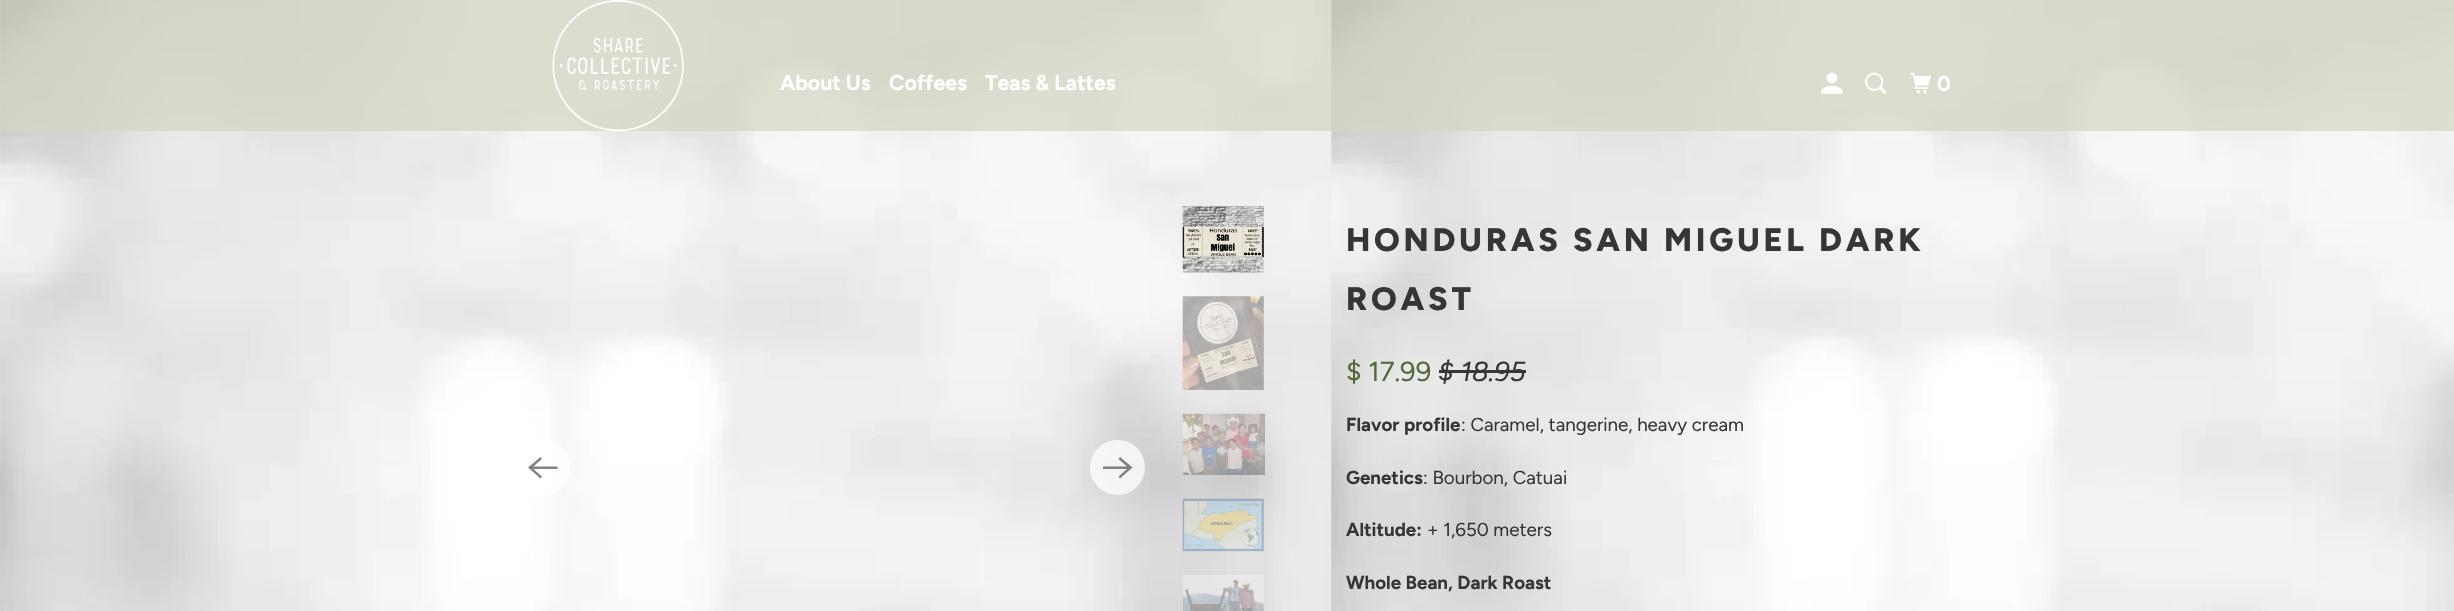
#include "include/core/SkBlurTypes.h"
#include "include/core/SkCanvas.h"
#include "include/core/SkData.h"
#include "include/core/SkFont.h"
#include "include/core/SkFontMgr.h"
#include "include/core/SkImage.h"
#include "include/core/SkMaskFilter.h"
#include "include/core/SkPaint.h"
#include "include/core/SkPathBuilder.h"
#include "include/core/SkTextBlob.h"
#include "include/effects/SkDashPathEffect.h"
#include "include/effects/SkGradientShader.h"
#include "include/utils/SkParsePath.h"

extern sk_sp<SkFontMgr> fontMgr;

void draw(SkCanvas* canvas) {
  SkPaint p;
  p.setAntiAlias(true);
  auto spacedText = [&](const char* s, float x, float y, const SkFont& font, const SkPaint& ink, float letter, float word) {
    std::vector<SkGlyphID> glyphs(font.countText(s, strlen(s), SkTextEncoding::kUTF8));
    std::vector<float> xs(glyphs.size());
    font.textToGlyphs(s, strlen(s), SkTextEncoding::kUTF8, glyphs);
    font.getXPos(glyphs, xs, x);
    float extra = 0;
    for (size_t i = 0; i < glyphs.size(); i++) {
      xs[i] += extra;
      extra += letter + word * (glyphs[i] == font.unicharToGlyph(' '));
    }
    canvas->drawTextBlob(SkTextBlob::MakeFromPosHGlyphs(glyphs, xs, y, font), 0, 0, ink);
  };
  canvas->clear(SK_ColorWHITE);
  canvas->drawImageRect(SkImages::DeferredFromEncodedData(SkData::MakeFromFileName("images/1.png")), SkRect::MakeLTRB(0, 0, 2454, 611), SkSamplingOptions());
  p.setColor(SkColorSetARGB(179, 214, 213, 194));
  canvas->drawRect(SkRect::MakeLTRB(0, 0, 2454, 131), p);
  canvas->drawImageRect(SkImages::DeferredFromEncodedData(SkData::MakeFromFileName("images/2.png")), SkRect::MakeLTRB(552, 0, 684, 132), SkSamplingOptions());
  canvas->drawImageRect(SkImages::DeferredFromEncodedData(SkData::MakeFromFileName("images/3.png")), SkRect::MakeLTRB(1821, 72, 1843, 94), SkSamplingOptions());
  canvas->drawImageRect(SkImages::DeferredFromEncodedData(SkData::MakeFromFileName("images/4.png")), SkRect::MakeLTRB(1865, 72, 1887, 94), SkSamplingOptions());
  canvas->drawImageRect(SkImages::DeferredFromEncodedData(SkData::MakeFromFileName("images/5.png")), SkRect::MakeLTRB(1910, 73, 1931, 94), SkSamplingOptions());
  p.setColor(SkColorSetARGB(191, 255, 255, 255));
  canvas->drawCircle(542.5f, 467.5f, 27.5f, p);
  p.setColor(SkColorSetRGB(132, 132, 132));
  canvas->drawPath(SkPathBuilder().moveTo(557.5f, 466.5f).lineTo(533.5f, 466.5f).lineTo(542, 459).lineTo(540.5f, 457).lineTo(528, 467.5f).lineTo(540.5f, 478.5f).lineTo(542, 476.5f).lineTo(533.5f, 469).lineTo(557.5f, 469).close().detach(), p);
  p.setColor(SkColorSetARGB(191, 255, 255, 255));
  canvas->drawCircle(1117.5f, 467.5f, 27.5f, p);
  p.setColor(SkColorSetRGB(128, 128, 128));
  canvas->drawPath(SkPathBuilder().moveTo(1103, 469).lineTo(1127, 469).lineTo(1118.5f, 476.5f).lineTo(1120, 478.5f).lineTo(1132.5f, 467.5f).lineTo(1120, 457).lineTo(1118.5f, 459).lineTo(1127, 466.5f).lineTo(1103, 466.5f).close().detach(), p);
  canvas->drawImageRect(SkImages::DeferredFromEncodedData(SkData::MakeFromFileName("images/6.png")), SkRect::MakeLTRB(1182, 206, 1264, 273), SkSamplingOptions());
  canvas->drawImageRect(SkImages::DeferredFromEncodedData(SkData::MakeFromFileName("images/7.png")), SkRect::MakeLTRB(1182, 296, 1264, 390), SkSamplingOptions());
  canvas->drawImageRect(SkImages::DeferredFromEncodedData(SkData::MakeFromFileName("images/8.png")), SkRect::MakeLTRB(1182, 413, 1265, 475), SkSamplingOptions());
  canvas->drawImageRect(SkImages::DeferredFromEncodedData(SkData::MakeFromFileName("images/9.png")), SkRect::MakeLTRB(1182, 498, 1264, 552), SkSamplingOptions());
  canvas->drawImageRect(SkImages::DeferredFromEncodedData(SkData::MakeFromFileName("images/10.png")), SkRect::MakeLTRB(1182, 575, 1264, 611), SkSamplingOptions());
  p.setColor(SkColorSetRGB(54, 54, 54));
  canvas->drawRect(SkRect::MakeLTRB(1439, 370, 1526, 373), p);
  SkFont font1(fontMgr->matchFamilyStyle("Figtree", SkFontStyle::Bold()), 21.25f);
  font1.setSubpixel(true);
  p.setColor(SK_ColorWHITE);
  canvas->drawString("About Us", 780, 90, font1, p);
  canvas->drawString("Coffees", 889, 90, font1, p);
  canvas->drawString("Teas & Lattes", 985, 90, font1, p);
  canvas->drawString("0", 1937, 91, font1, p);
  SkFont font2(fontMgr->matchFamilyStyle("Figtree", SkFontStyle(800, SkFontStyle::kNormal_Width, SkFontStyle::kUpright_Slant)), 32.5f);
  font2.setSubpixel(true);
  p.setColor(SkColorSetRGB(54, 54, 54));
  spacedText("HONDURAS SAN MIGUEL DARK", 1346, 251, font2, p, 3.75f, 0);
  spacedText("ROAST", 1346, 310, font2, p, 3.75f, 0);
  SkFont font3(fontMgr->matchFamilyStyle("Figtree", SkFontStyle::Normal()), 27.5f);
  font3.setSubpixel(true);
  p.setColor(SkColorSetRGB(84, 106, 58));
  canvas->drawString("$ 17.99", 1346, 381, font3, p);
  SkFont font4(fontMgr->matchFamilyStyle("Figtree", SkFontStyle::Italic()), 27.5f);
  font4.setSubpixel(true);
  p.setColor(SkColorSetRGB(54, 54, 54));
  canvas->drawString("$ 18.95", 1438, 381, font4, p);
  SkFont font5(fontMgr->matchFamilyStyle("Figtree", SkFontStyle::Bold()), 18.75f);
  font5.setSubpixel(true);
  canvas->drawString("Flavor profile", 1346, 431, font5, p);
  SkFont font6(fontMgr->matchFamilyStyle("Figtree", SkFontStyle::Normal()), 18.75f);
  font6.setSubpixel(true);
  canvas->drawString(": Caramel, tangerine, heavy cream", 1461, 431, font6, p);
  canvas->drawString("Genetics", 1346, 484, font5, p);
  canvas->drawString(": Bourbon, Catuai", 1423, 484, font6, p);
  canvas->drawString("Altitude:", 1346, 536, font5, p);
  canvas->drawString("+ 1,650 meters", 1427, 536, font6, p);
  canvas->drawString("Whole Bean, Dark Roast", 1346, 589, font5, p);
}
